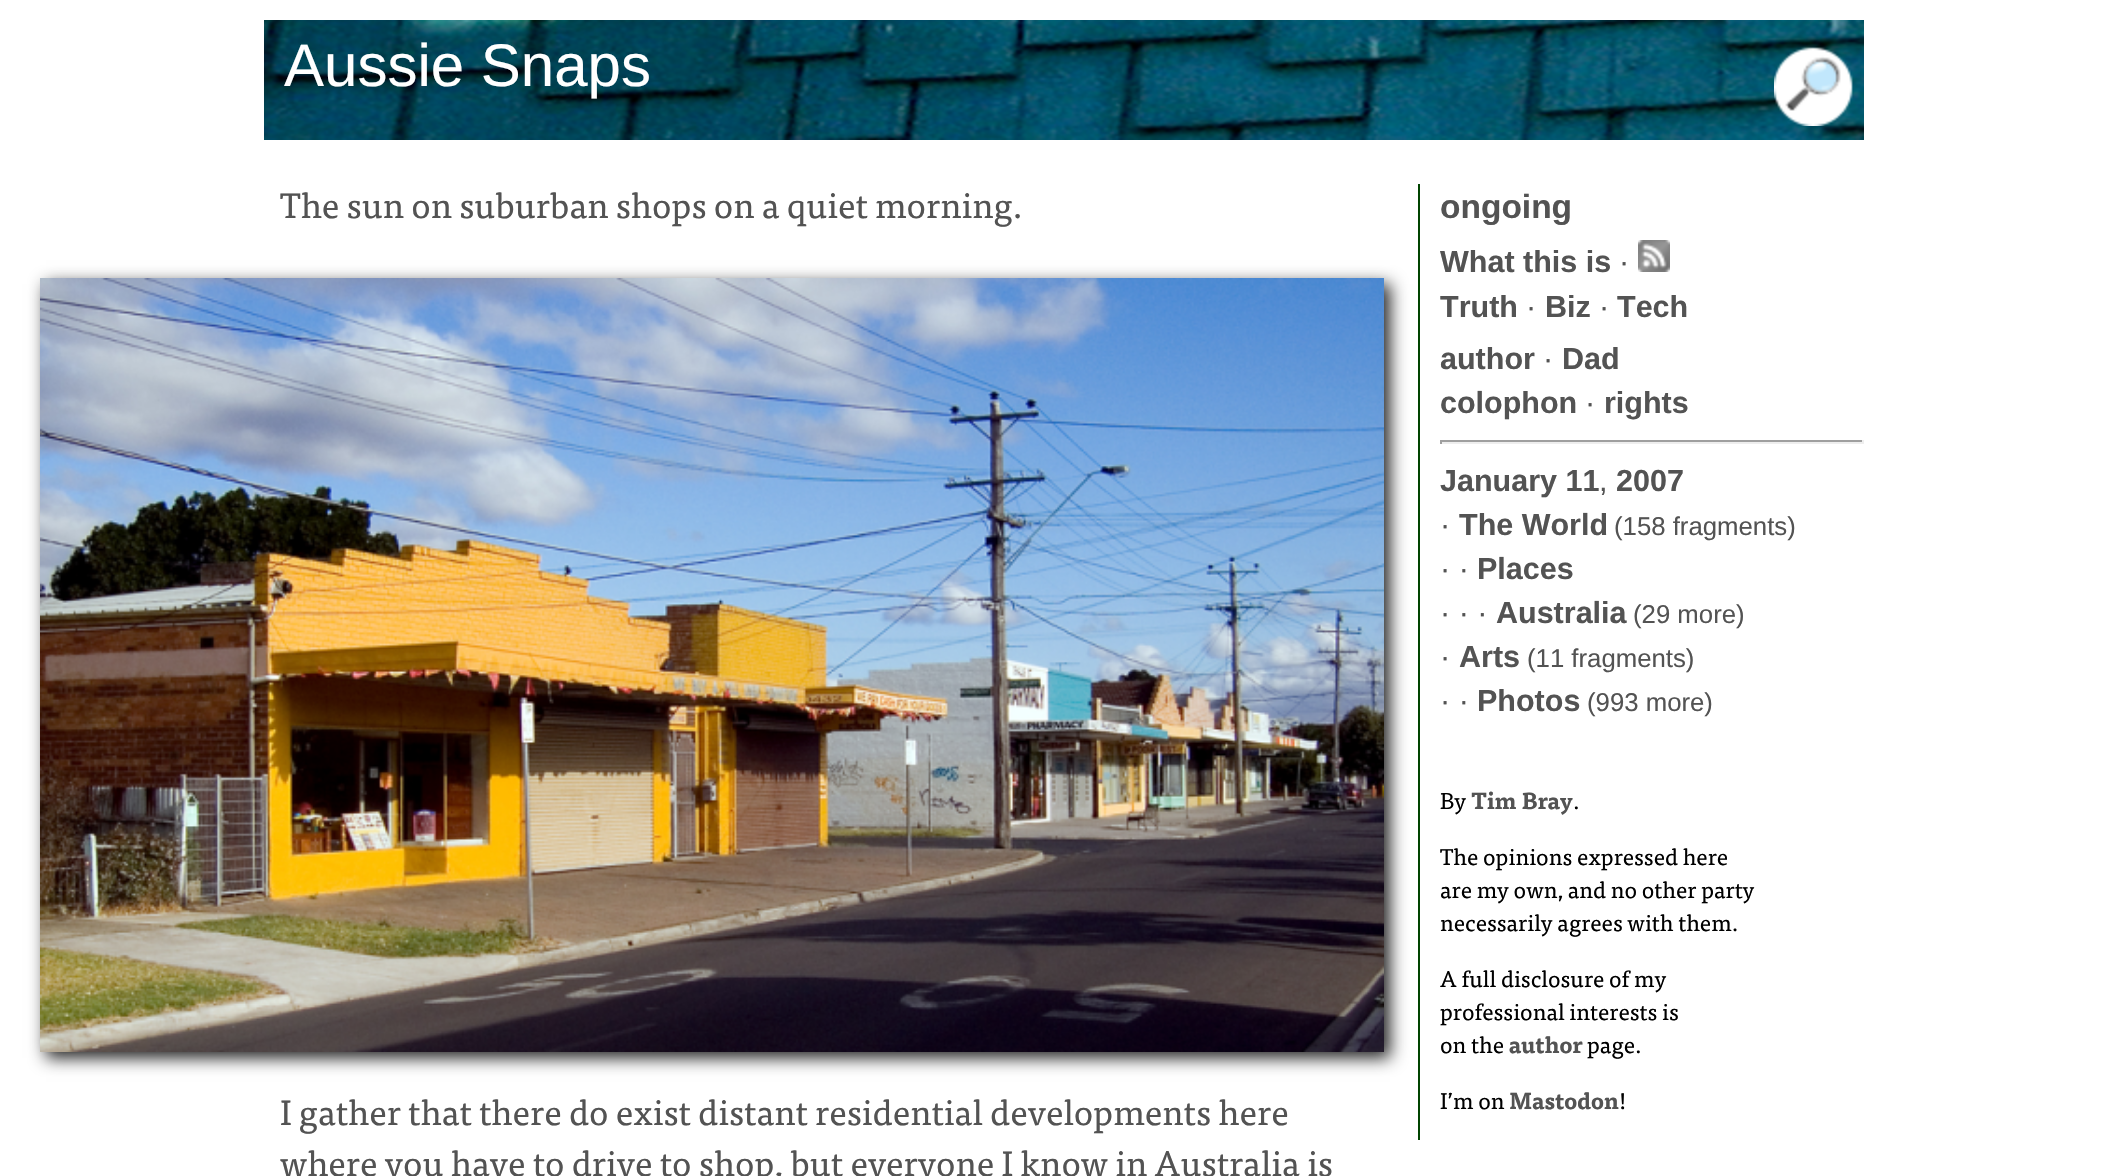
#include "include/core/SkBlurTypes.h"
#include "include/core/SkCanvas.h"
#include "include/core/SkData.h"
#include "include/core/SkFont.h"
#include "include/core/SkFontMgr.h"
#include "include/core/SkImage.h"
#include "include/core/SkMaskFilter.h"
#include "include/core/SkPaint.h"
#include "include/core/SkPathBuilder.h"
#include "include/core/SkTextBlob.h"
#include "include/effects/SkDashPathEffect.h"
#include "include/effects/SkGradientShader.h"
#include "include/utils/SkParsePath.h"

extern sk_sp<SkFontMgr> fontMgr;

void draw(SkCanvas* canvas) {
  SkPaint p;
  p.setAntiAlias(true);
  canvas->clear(SK_ColorWHITE);
  canvas->drawImageRect(SkImages::DeferredFromEncodedData(SkData::MakeFromFileName("images/1.png")), SkRect::MakeLTRB(264, 20, 1864, 140), SkSamplingOptions());
  canvas->drawImageRect(SkImages::DeferredFromEncodedData(SkData::MakeFromFileName("images/2.png")), SkRect::MakeLTRB(1774, 47, 1853, 126), SkSamplingOptions());
  p.setColor(SkColorSetRGB(34, 34, 34));
  p.setMaskFilter(SkMaskFilter::MakeBlur(kNormal_SkBlurStyle, 8));
  canvas->drawRect(SkRect::MakeLTRB(46, 284, 1390, 1058), p);
  p.setMaskFilter(nullptr);
  canvas->drawImageRect(SkImages::DeferredFromEncodedData(SkData::MakeFromFileName("images/3.png")), SkRect::MakeLTRB(40, 278, 1384, 1052), SkSamplingOptions());
  p.setColor(SkColorSetRGB(0, 68, 0));
  canvas->drawRect(SkRect::MakeLTRB(1418, 184, 1420, 1140), p);
  canvas->drawImageRect(SkImages::DeferredFromEncodedData(SkData::MakeFromFileName("images/4.png")), SkRect::MakeLTRB(1638, 240, 1670, 272), SkSamplingOptions());
  p.setColor(SkColorSetRGB(159, 159, 159));
  canvas->drawRect(SkRect::MakeLTRB(1440, 440, 1864, 442), p);
  p.setColor(SkColorSetRGB(238, 238, 238));
  canvas->drawRect(SkRect::MakeLTRB(1862, 440, 1864, 444), p);
  canvas->drawRect(SkRect::MakeLTRB(1440, 442, 1864, 444), p);
  p.setColor(SkColorSetRGB(159, 159, 159));
  canvas->drawRect(SkRect::MakeLTRB(1440, 440, 1442, 444), p);
  SkFont font1(fontMgr->matchFamilyStyle("Liberation Sans", SkFontStyle::Normal()), 60);
  font1.setSubpixel(true);
  p.setColor(SK_ColorWHITE);
  canvas->drawString("Aussie Snaps", 284, 86, font1, p);
  SkFont font2(fontMgr->matchFamilyStyle("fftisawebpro", SkFontStyle::Normal()), 35.2f);
  font2.setSubpixel(true);
  p.setColor(SkColorSetRGB(83, 83, 83));
  canvas->drawString("The sun on suburban shops on a quiet morning.", 280, 218, font2, p);
  canvas->drawString("I gather that there do exist distant residential developments here", 280, 1125, font2, p);
  canvas->drawString("where you have to drive to shop, but everyone I know in Australia is", 280, 1176, font2, p);
  SkFont font3(fontMgr->matchFamilyStyle("Liberation Sans", SkFontStyle::Bold()), 33.5f);
  font3.setSubpixel(true);
  canvas->drawString("ongoing", 1440, 218, font3, p);
  SkFont font4(fontMgr->matchFamilyStyle("Liberation Sans", SkFontStyle::Bold()), 30.5f);
  font4.setSubpixel(true);
  canvas->drawString("What this is", 1440, 272, font4, p);
  SkFont font5(fontMgr->matchFamilyStyle("Liberation Sans", SkFontStyle::Normal()), 30.5f);
  font5.setSubpixel(true);
  canvas->drawString("·", 1619, 272, font5, p);
  canvas->drawString("Truth", 1440, 317, font4, p);
  canvas->drawString("·", 1526, 317, font5, p);
  canvas->drawString("Biz", 1545, 317, font4, p);
  canvas->drawString("·", 1599, 317, font5, p);
  canvas->drawString("Tech", 1617, 317, font4, p);
  canvas->drawString("author", 1440, 369, font4, p);
  canvas->drawString("·", 1543, 369, font5, p);
  canvas->drawString("Dad", 1562, 369, font4, p);
  canvas->drawString("colophon", 1440, 413, font4, p);
  canvas->drawString("·", 1585, 413, font5, p);
  canvas->drawString("rights", 1604, 413, font4, p);
  canvas->drawString("January 11", 1440, 491, font4, p);
  canvas->drawString(",", 1599, 491, font5, p);
  canvas->drawString("2007", 1616, 491, font4, p);
  canvas->drawString("·", 1440, 535, font5, p);
  canvas->drawString("The World", 1459, 535, font4, p);
  SkFont font6(fontMgr->matchFamilyStyle("Liberation Sans", SkFontStyle::Normal()), 25.75f);
  font6.setSubpixel(true);
  canvas->drawString("(158 fragments)", 1614, 535, font6, p);
  canvas->drawString("· ·", 1440, 579, font5, p);
  canvas->drawString("Places", 1477, 579, font4, p);
  canvas->drawString("· · ·", 1440, 623, font5, p);
  canvas->drawString("Australia", 1496, 623, font4, p);
  canvas->drawString("(29 more)", 1633, 623, font6, p);
  canvas->drawString("·", 1440, 667, font5, p);
  canvas->drawString("Arts", 1459, 667, font4, p);
  canvas->drawString("(11 fragments)", 1527, 667, font6, p);
  canvas->drawString("· ·", 1440, 711, font5, p);
  canvas->drawString("Photos", 1477, 711, font4, p);
  canvas->drawString("(993 more)", 1587, 711, font6, p);
  SkFont font7(fontMgr->matchFamilyStyle("fftisawebpro", SkFontStyle::Normal()), 22.75f);
  font7.setSubpixel(true);
  p.setColor(SK_ColorBLACK);
  canvas->drawString("By", 1440, 809, font7, p);
  SkFont font8(fontMgr->matchFamilyStyle("fftisawebpro", SkFontStyle::Bold()), 22.75f);
  font8.setSubpixel(true);
  p.setColor(SkColorSetRGB(83, 83, 83));
  canvas->drawString("Tim Bray", 1471, 809, font8, p);
  p.setColor(SK_ColorBLACK);
  canvas->drawString(".", 1573, 809, font7, p);
  canvas->drawString("The opinions expressed here", 1440, 865, font7, p);
  canvas->drawString("are my own, and no other party", 1440, 898, font7, p);
  canvas->drawString("necessarily agrees with them.", 1440, 931, font7, p);
  canvas->drawString("A full disclosure of my", 1440, 987, font7, p);
  canvas->drawString("professional interests is", 1440, 1020, font7, p);
  canvas->drawString("on the", 1440, 1053, font7, p);
  p.setColor(SkColorSetRGB(83, 83, 83));
  canvas->drawString("author", 1509, 1053, font8, p);
  p.setColor(SK_ColorBLACK);
  canvas->drawString("page.", 1587, 1053, font7, p);
  canvas->drawString("I’m on", 1440, 1109, font7, p);
  p.setColor(SkColorSetRGB(83, 83, 83));
  canvas->drawString("Mastodon", 1509, 1109, font8, p);
  p.setColor(SK_ColorBLACK);
  canvas->drawString("!", 1619, 1109, font7, p);
}
